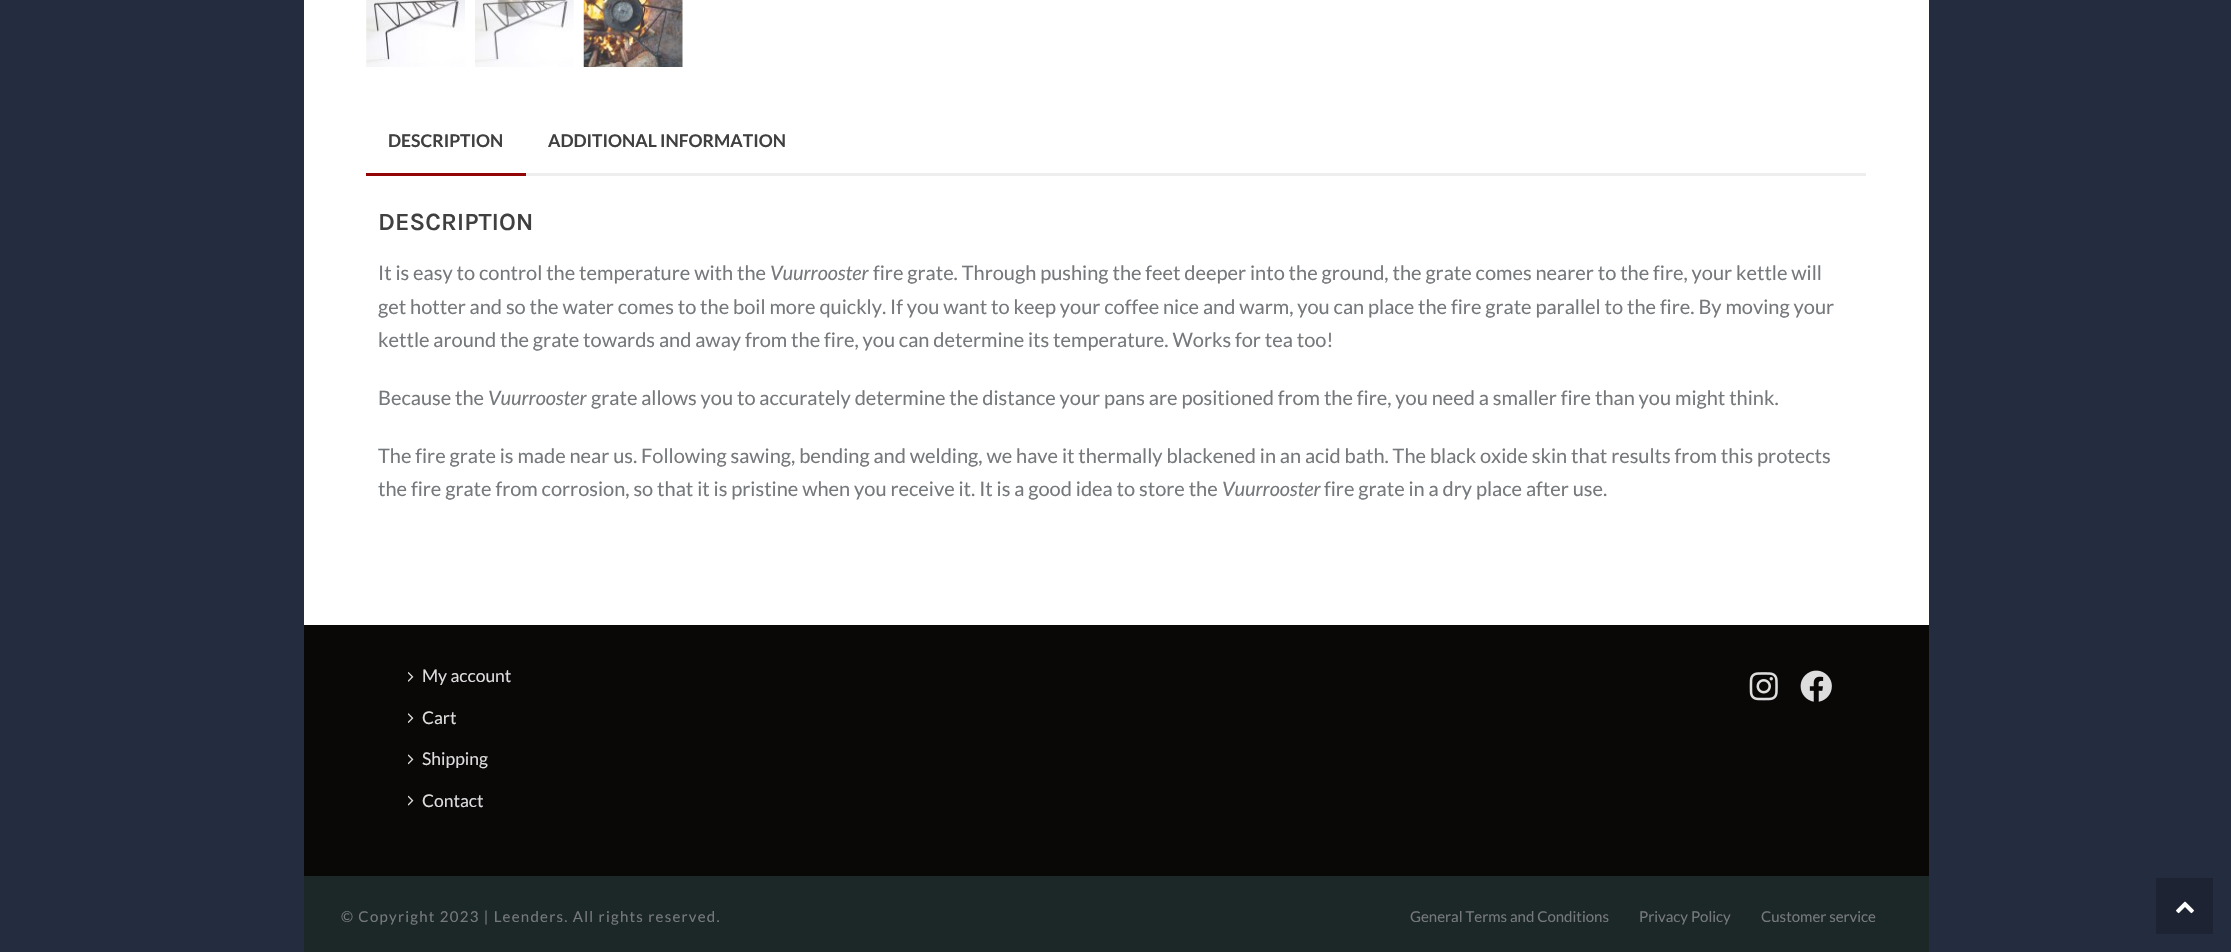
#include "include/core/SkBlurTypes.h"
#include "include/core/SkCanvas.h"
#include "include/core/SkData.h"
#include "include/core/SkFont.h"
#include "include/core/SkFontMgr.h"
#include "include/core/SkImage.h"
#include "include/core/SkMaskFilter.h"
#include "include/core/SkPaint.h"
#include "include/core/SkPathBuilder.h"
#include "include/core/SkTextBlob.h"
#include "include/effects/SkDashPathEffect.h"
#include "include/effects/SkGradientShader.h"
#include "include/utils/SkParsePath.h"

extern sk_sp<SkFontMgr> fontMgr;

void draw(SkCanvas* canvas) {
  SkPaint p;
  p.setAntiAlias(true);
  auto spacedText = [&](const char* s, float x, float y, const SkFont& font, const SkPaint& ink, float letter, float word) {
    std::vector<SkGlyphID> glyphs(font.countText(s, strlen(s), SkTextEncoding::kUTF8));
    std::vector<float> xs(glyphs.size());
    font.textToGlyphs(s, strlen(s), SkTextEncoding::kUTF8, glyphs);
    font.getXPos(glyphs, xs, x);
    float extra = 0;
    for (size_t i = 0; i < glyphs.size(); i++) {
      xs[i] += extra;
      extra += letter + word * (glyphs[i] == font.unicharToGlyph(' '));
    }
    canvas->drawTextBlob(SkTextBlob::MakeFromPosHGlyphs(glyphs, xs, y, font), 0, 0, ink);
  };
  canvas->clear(SkColorSetRGB(36, 44, 63));
  p.setColor(SK_ColorWHITE);
  canvas->drawRect(SkRect::MakeLTRB(304, 0, 1929, 625), p);
  canvas->drawImageRect(SkImages::DeferredFromEncodedData(SkData::MakeFromFileName("images/1.png")), SkRect::MakeLTRB(366, 0, 465, 67), SkSamplingOptions());
  canvas->drawImageRect(SkImages::DeferredFromEncodedData(SkData::MakeFromFileName("images/2.png")), SkRect::MakeLTRB(475, 0, 574, 67), SkSamplingOptions());
  canvas->drawImageRect(SkImages::DeferredFromEncodedData(SkData::MakeFromFileName("images/3.png")), SkRect::MakeLTRB(583, 0, 683, 67), SkSamplingOptions());
  p.setColor(SkColorSetRGB(238, 238, 238));
  canvas->drawRect(SkRect::MakeLTRB(526, 173, 1866, 176), p);
  p.setColor(SkColorSetRGB(147, 5, 5));
  canvas->drawRect(SkRect::MakeLTRB(366, 173, 526, 176), p);
  p.setColor(SkColorSetRGB(10, 7, 7));
  canvas->drawRect(SkRect::MakeLTRB(304, 625, 1929, 876), p);
  canvas->drawImageRect(SkImages::DeferredFromEncodedData(SkData::MakeFromFileName("images/4.png")), SkRect::MakeLTRB(408, 672, 414, 682), SkSamplingOptions());
  canvas->drawImageRect(SkImages::DeferredFromEncodedData(SkData::MakeFromFileName("images/5.png")), SkRect::MakeLTRB(408, 713, 414, 723), SkSamplingOptions());
  canvas->drawImageRect(SkImages::DeferredFromEncodedData(SkData::MakeFromFileName("images/6.png")), SkRect::MakeLTRB(408, 754, 414, 765), SkSamplingOptions());
  canvas->drawImageRect(SkImages::DeferredFromEncodedData(SkData::MakeFromFileName("images/7.png")), SkRect::MakeLTRB(408, 795, 414, 806), SkSamplingOptions());
  canvas->drawImageRect(SkImages::DeferredFromEncodedData(SkData::MakeFromFileName("images/8.png")), SkRect::MakeLTRB(1749, 672, 1778, 701), SkSamplingOptions());
  canvas->drawImageRect(SkImages::DeferredFromEncodedData(SkData::MakeFromFileName("images/9.png")), SkRect::MakeLTRB(1800, 670, 1832, 702), SkSamplingOptions());
  p.setColor(SkColorSetRGB(28, 39, 40));
  canvas->drawRect(SkRect::MakeLTRB(304, 876, 1929, 952), p);
  p.setColor(SkColorSetRGB(29, 35, 50));
  canvas->drawRect(SkRect::MakeLTRB(2156, 878, 2213, 934), p);
  canvas->drawImageRect(SkImages::DeferredFromEncodedData(SkData::MakeFromFileName("images/10.png")), SkRect::MakeLTRB(2176, 901, 2194, 914), SkSamplingOptions());
  SkFont font1(fontMgr->matchFamilyStyle("Lato", SkFontStyle::Bold()), 17.5f);
  font1.setSubpixel(true);
  p.setColor(SkColorSetRGB(64, 64, 64));
  canvas->drawString("DESCRIPTION", 388, 147, font1, p);
  canvas->drawString("ADDITIONAL INFORMATION", 548, 147, font1, p);
  SkFont font2(fontMgr->matchFamilyStyle("Karla", SkFontStyle(600, SkFontStyle::kNormal_Width, SkFontStyle::kUpright_Slant)), 25);
  font2.setSubpixel(true);
  canvas->drawString("DESCRIPTION", 378, 230, font2, p);
  SkFont font3(fontMgr->matchFamilyStyle("Lato", SkFontStyle::Normal()), 20);
  font3.setSubpixel(true);
  p.setColor(SkColorSetRGB(118, 121, 124));
  canvas->drawString("It is easy to control the temperature with the", 378, 280, font3, p);
  SkFont font4(fontMgr->matchFamilyStyle("Lato", SkFontStyle::Italic()), 20);
  font4.setSubpixel(true);
  canvas->drawString("Vuurrooster", 770, 280, font4, p);
  canvas->drawString("fire grate. Through pushing the feet deeper into the ground, the grate comes nearer to the fire, your kettle will", 873, 280, font3, p);
  canvas->drawString("get hotter and so the water comes to the boil more quickly. If you want to keep your coffee nice and warm, you can place the fire grate parallel to the fire. By moving your", 378, 314, font3, p);
  canvas->drawString("kettle around the grate towards and away from the fire, you can determine its temperature. Works for tea too!", 378, 347, font3, p);
  canvas->drawString("Because the", 378, 405, font3, p);
  canvas->drawString("Vuurrooster", 488, 405, font4, p);
  canvas->drawString("grate allows you to accurately determine the distance your pans are positioned from the fire, you need a smaller fire than you might think.", 591, 405, font3, p);
  canvas->drawString("The fire grate is made near us. Following sawing, bending and welding, we have it thermally blackened in an acid bath. The black oxide skin that results from this protects", 378, 463, font3, p);
  canvas->drawString("the fire grate from corrosion, so that it is pristine when you receive it. It is a good idea to store the", 378, 496, font3, p);
  canvas->drawString("Vuurrooster", 1222, 496, font4, p);
  canvas->drawString("fire grate in a dry place after use.", 1324, 496, font3, p);
  SkFont font5(fontMgr->matchFamilyStyle("Lato", SkFontStyle::Normal()), 17.5f);
  font5.setSubpixel(true);
  p.setColor(SkColorSetRGB(221, 221, 221));
  canvas->drawString("My account", 422, 682, font5, p);
  canvas->drawString("Cart", 422, 724, font5, p);
  canvas->drawString("Shipping", 422, 765, font5, p);
  canvas->drawString("Contact", 422, 807, font5, p);
  SkFont font6(fontMgr->matchFamilyStyle("Lato", SkFontStyle::Normal()), 15);
  font6.setSubpixel(true);
  p.setColor(SkColorSetRGB(118, 121, 124));
  spacedText("© Copyright 2023 | Leenders. All rights reserved.", 341, 922, font6, p, 1.25f, 0);
  canvas->drawString("General Terms and Conditions", 1410, 922, font6, p);
  canvas->drawString("Privacy Policy", 1639, 922, font6, p);
  canvas->drawString("Customer service", 1761, 922, font6, p);
}
